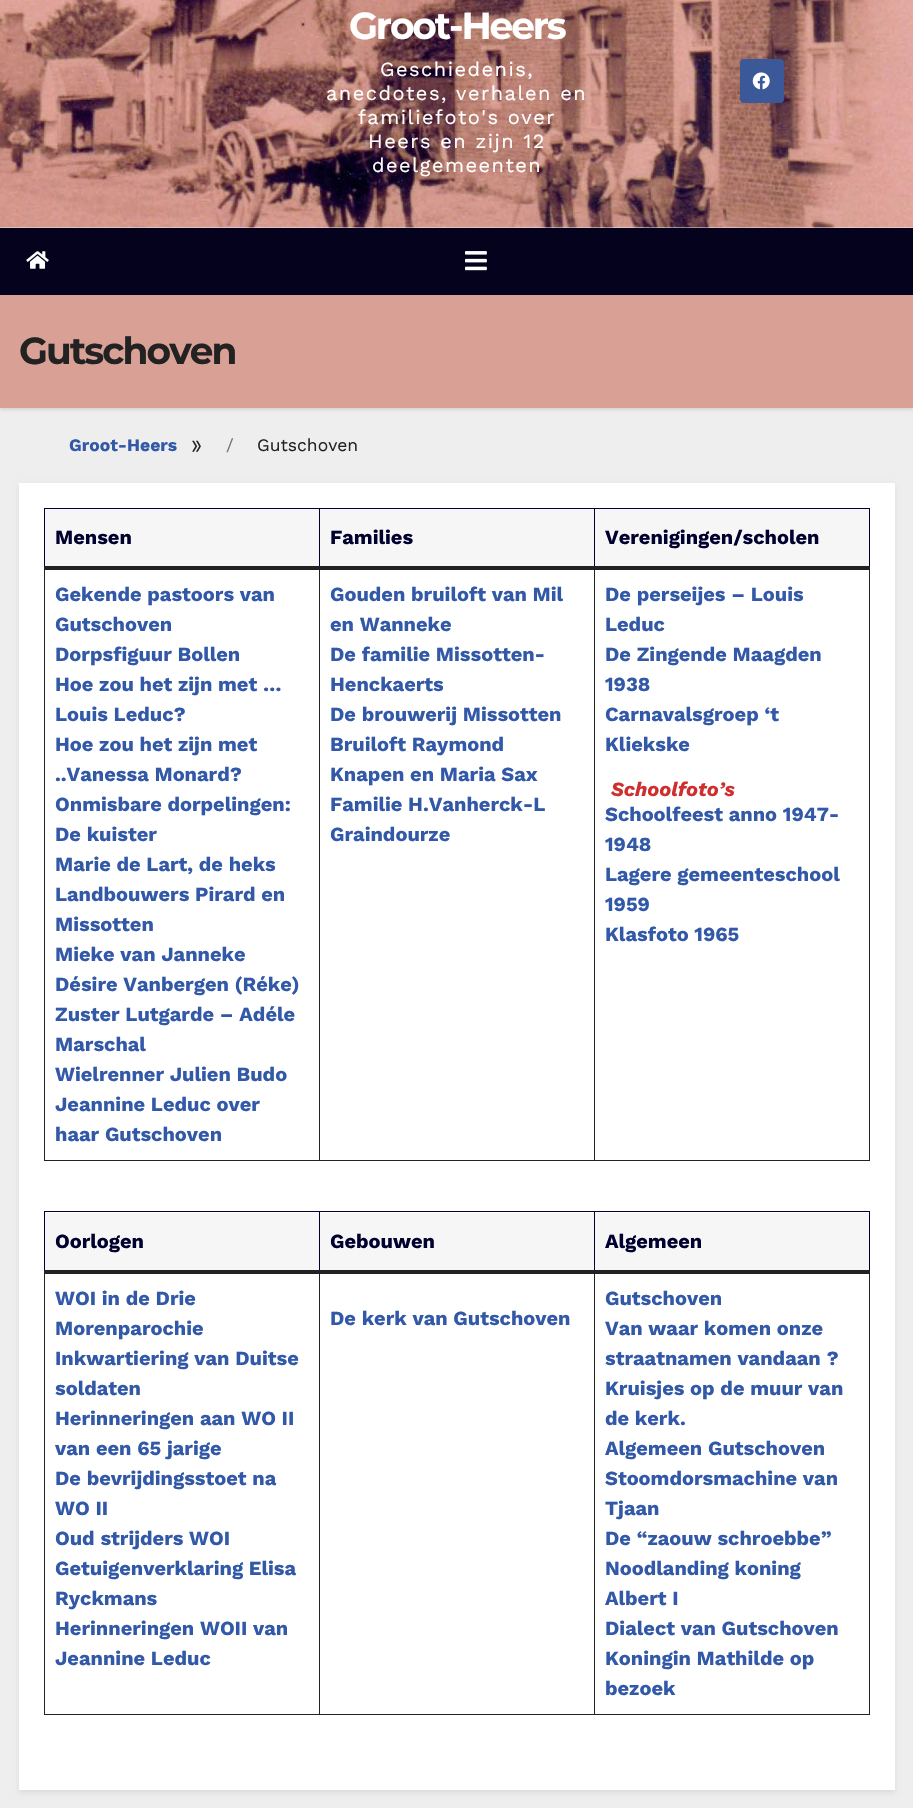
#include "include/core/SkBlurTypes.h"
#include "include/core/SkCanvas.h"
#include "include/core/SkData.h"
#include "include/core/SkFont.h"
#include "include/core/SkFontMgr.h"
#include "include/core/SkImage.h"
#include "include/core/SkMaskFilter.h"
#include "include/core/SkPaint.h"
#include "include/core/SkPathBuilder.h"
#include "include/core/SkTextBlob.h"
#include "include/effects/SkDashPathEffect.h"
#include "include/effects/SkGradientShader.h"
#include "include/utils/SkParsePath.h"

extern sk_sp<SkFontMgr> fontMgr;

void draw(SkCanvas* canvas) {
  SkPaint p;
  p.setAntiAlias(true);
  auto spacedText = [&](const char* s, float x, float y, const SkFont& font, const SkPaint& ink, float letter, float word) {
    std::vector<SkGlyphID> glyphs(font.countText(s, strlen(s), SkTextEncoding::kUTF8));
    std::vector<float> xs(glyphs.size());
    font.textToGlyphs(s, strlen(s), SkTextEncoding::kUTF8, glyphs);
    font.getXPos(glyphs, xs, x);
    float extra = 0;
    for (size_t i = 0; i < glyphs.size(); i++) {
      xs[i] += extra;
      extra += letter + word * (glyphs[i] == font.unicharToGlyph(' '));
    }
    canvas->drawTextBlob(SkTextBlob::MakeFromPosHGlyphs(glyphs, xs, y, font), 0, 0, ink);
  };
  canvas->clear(SkColorSetRGB(238, 238, 238));
  canvas->drawImageRect(SkImages::DeferredFromEncodedData(SkData::MakeFromFileName("images/1.png")), SkRect::MakeLTRB(0, 0, 913, 228), SkSamplingOptions());
  p.setColor(SkColorSetRGB(59, 89, 152));
  canvas->drawRoundRect(SkRect::MakeLTRB(740, 59, 784, 103), 4, 4, p);
  canvas->drawImageRect(SkImages::DeferredFromEncodedData(SkData::MakeFromFileName("images/2.png")), SkRect::MakeLTRB(752, 72, 770, 90), SkSamplingOptions());
  p.setColor(SkColorSetARGB(38, 0, 0, 0));
  p.setMaskFilter(SkMaskFilter::MakeBlur(kNormal_SkBlurStyle, 2));
  canvas->drawRect(SkRect::MakeLTRB(0, 296, 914, 409), p);
  p.setMaskFilter(nullptr);
  p.setColor(SkColorSetRGB(4, 2, 28));
  canvas->drawRect(SkRect::MakeLTRB(0, 228, 913, 295), p);
  canvas->drawImageRect(SkImages::DeferredFromEncodedData(SkData::MakeFromFileName("images/3.png")), SkRect::MakeLTRB(26, 251, 49, 269), SkSamplingOptions());
  canvas->drawImageRect(SkImages::DeferredFromEncodedData(SkData::MakeFromFileName("images/4.png")), SkRect::MakeLTRB(465, 251, 487, 271), SkSamplingOptions());
  p.setColor(SkColorSetRGB(217, 160, 149));
  canvas->drawRect(SkRect::MakeLTRB(0, 295, 913, 408), p);
  canvas->drawImageRect(SkImages::DeferredFromEncodedData(SkData::MakeFromFileName("images/5.png")), SkRect::MakeLTRB(192, 440, 201, 452), SkSamplingOptions());
  p.setColor(SkColorSetARGB(20, 0, 0, 0));
  p.setMaskFilter(SkMaskFilter::MakeBlur(kNormal_SkBlurStyle, 2.5f));
  canvas->drawRect(SkRect::MakeLTRB(19, 485, 895, 1793), p);
  p.setMaskFilter(nullptr);
  p.setColor(SK_ColorWHITE);
  canvas->drawRect(SkRect::MakeLTRB(19, 483, 895, 1790), p);
  p.setColor(SkColorSetRGB(1, 1, 47));
  canvas->drawRect(SkRect::MakeLTRB(594, 508, 870, 509), p);
  p.setColor(SkColorSetRGB(34, 34, 34));
  canvas->drawRect(SkRect::MakeLTRB(869, 568, 870, 1161), p);
  canvas->drawRect(SkRect::MakeLTRB(594, 1160, 870, 1161), p);
  canvas->drawRect(SkRect::MakeLTRB(594, 568, 595, 1161), p);
  p.setColor(SkColorSetRGB(1, 1, 47));
  canvas->drawRect(SkRect::MakeLTRB(594, 508, 595, 569), p);
  canvas->drawRect(SkRect::MakeLTRB(319, 508, 595, 509), p);
  p.setColor(SkColorSetRGB(34, 34, 34));
  canvas->drawRect(SkRect::MakeLTRB(319, 1160, 595, 1161), p);
  canvas->drawRect(SkRect::MakeLTRB(319, 568, 320, 1161), p);
  p.setColor(SkColorSetRGB(1, 1, 47));
  canvas->drawRect(SkRect::MakeLTRB(319, 508, 320, 569), p);
  canvas->drawRect(SkRect::MakeLTRB(44, 508, 320, 509), p);
  p.setColor(SkColorSetRGB(34, 34, 34));
  canvas->drawRect(SkRect::MakeLTRB(44, 1160, 320, 1161), p);
  canvas->drawRect(SkRect::MakeLTRB(44, 568, 45, 1161), p);
  p.setColor(SkColorSetRGB(1, 1, 47));
  canvas->drawRect(SkRect::MakeLTRB(44, 508, 45, 569), p);
  canvas->drawRect(SkRect::MakeLTRB(869, 508, 870, 569), p);
  p.setColor(SkColorSetRGB(34, 34, 34));
  canvas->drawRect(SkRect::MakeLTRB(44, 566, 870, 570), p);
  p.setColor(SkColorSetRGB(246, 246, 246));
  canvas->drawRect(SkRect::MakeLTRB(45, 509, 319, 566), p);
  canvas->drawRect(SkRect::MakeLTRB(320, 509, 594, 566), p);
  canvas->drawRect(SkRect::MakeLTRB(595, 509, 869, 566), p);
  p.setColor(SkColorSetRGB(1, 1, 47));
  canvas->drawRect(SkRect::MakeLTRB(594, 1211, 870, 1212), p);
  p.setColor(SkColorSetRGB(34, 34, 34));
  canvas->drawRect(SkRect::MakeLTRB(869, 1271, 870, 1715), p);
  canvas->drawRect(SkRect::MakeLTRB(594, 1714, 870, 1715), p);
  canvas->drawRect(SkRect::MakeLTRB(594, 1271, 595, 1715), p);
  p.setColor(SkColorSetRGB(1, 1, 47));
  canvas->drawRect(SkRect::MakeLTRB(594, 1211, 595, 1273), p);
  canvas->drawRect(SkRect::MakeLTRB(319, 1211, 595, 1212), p);
  p.setColor(SkColorSetRGB(34, 34, 34));
  canvas->drawRect(SkRect::MakeLTRB(319, 1714, 595, 1715), p);
  canvas->drawRect(SkRect::MakeLTRB(319, 1271, 320, 1715), p);
  p.setColor(SkColorSetRGB(1, 1, 47));
  canvas->drawRect(SkRect::MakeLTRB(319, 1211, 320, 1273), p);
  canvas->drawRect(SkRect::MakeLTRB(44, 1211, 320, 1212), p);
  p.setColor(SkColorSetRGB(34, 34, 34));
  canvas->drawRect(SkRect::MakeLTRB(44, 1714, 320, 1715), p);
  canvas->drawRect(SkRect::MakeLTRB(44, 1271, 45, 1715), p);
  p.setColor(SkColorSetRGB(1, 1, 47));
  canvas->drawRect(SkRect::MakeLTRB(44, 1211, 45, 1273), p);
  canvas->drawRect(SkRect::MakeLTRB(869, 1211, 870, 1273), p);
  p.setColor(SkColorSetRGB(34, 34, 34));
  canvas->drawRect(SkRect::MakeLTRB(44, 1270, 870, 1274), p);
  p.setColor(SkColorSetRGB(246, 246, 246));
  canvas->drawRect(SkRect::MakeLTRB(45, 1213, 319, 1270), p);
  canvas->drawRect(SkRect::MakeLTRB(320, 1213, 594, 1270), p);
  canvas->drawRect(SkRect::MakeLTRB(595, 1213, 869, 1270), p);
  SkFont font1(fontMgr->matchFamilyStyle("Montserrat", SkFontStyle::Bold()), 37.5f);
  font1.setSubpixel(true);
  p.setColor(SK_ColorWHITE);
  spacedText("Groot-Heers", 349, 39, font1, p, -2.1f, 0);
  SkFont font2(fontMgr->matchFamilyStyle("Work Sans", SkFontStyle::Normal()), 20);
  font2.setSubpixel(true);
  spacedText("Geschiedenis,", 380, 76, font2, p, 1.5f, 0);
  spacedText("anecdotes, verhalen en", 326, 100, font2, p, 1.5f, 0);
  spacedText("familiefoto's over", 358, 124, font2, p, 1.5f, 0);
  spacedText("Heers en zijn 12", 368, 148, font2, p, 1.5f, 0);
  spacedText("deelgemeenten", 372, 172, font2, p, 1.5f, 0);
  p.setColor(SkColorSetRGB(34, 34, 34));
  spacedText("Gutschoven", 19, 364, font1, p, -1.9f, 0);
  SkFont font3(fontMgr->matchFamilyStyle("Work Sans", SkFontStyle::Bold()), 17.5f);
  font3.setSubpixel(true);
  p.setColor(SkColorSetRGB(50, 88, 168));
  canvas->drawString("Groot-Heers", 69, 451, font3, p);
  SkFont font4(fontMgr->matchFamilyStyle("Work Sans", SkFontStyle::Normal()), 17.5f);
  font4.setSubpixel(true);
  p.setColor(SkColorSetRGB(108, 117, 125));
  canvas->drawString("/", 226, 451, font4, p);
  p.setColor(SkColorSetRGB(34, 34, 34));
  canvas->drawString("Gutschoven", 257, 451, font4, p);
  SkFont font5(fontMgr->matchFamilyStyle("Work Sans", SkFontStyle::Bold()), 20);
  font5.setSubpixel(true);
  p.setColor(SkColorSetRGB(1, 1, 47));
  canvas->drawString("Mensen", 55, 544, font5, p);
  canvas->drawString("Families", 330, 544, font5, p);
  canvas->drawString("Verenigingen/scholen", 605, 544, font5, p);
  p.setColor(SkColorSetRGB(50, 88, 168));
  canvas->drawString("Gekende pastoors van", 55, 601, font5, p);
  canvas->drawString("Gutschoven", 55, 631, font5, p);
  canvas->drawString("Dorpsfiguur Bollen", 55, 661, font5, p);
  canvas->drawString("Hoe zou het zijn met …", 55, 691, font5, p);
  canvas->drawString("Louis Leduc?", 55, 721, font5, p);
  canvas->drawString("Hoe zou het zijn met", 55, 751, font5, p);
  canvas->drawString("..Vanessa Monard?", 55, 781, font5, p);
  canvas->drawString("Onmisbare dorpelingen:", 55, 811, font5, p);
  canvas->drawString("De kuister", 55, 841, font5, p);
  canvas->drawString("Marie de Lart, de heks", 55, 871, font5, p);
  canvas->drawString("Landbouwers Pirard en", 55, 901, font5, p);
  canvas->drawString("Missotten", 55, 931, font5, p);
  canvas->drawString("Mieke van Janneke", 55, 961, font5, p);
  canvas->drawString("Désire Vanbergen (Réke)", 55, 991, font5, p);
  canvas->drawString("Zuster Lutgarde – Adéle", 55, 1021, font5, p);
  canvas->drawString("Marschal", 55, 1051, font5, p);
  canvas->drawString("Wielrenner Julien Budo", 55, 1081, font5, p);
  canvas->drawString("Jeannine Leduc over", 55, 1111, font5, p);
  canvas->drawString("haar Gutschoven", 55, 1141, font5, p);
  canvas->drawString("Gouden bruiloft van Mil", 330, 601, font5, p);
  canvas->drawString("en Wanneke", 330, 631, font5, p);
  canvas->drawString("De familie Missotten-", 330, 661, font5, p);
  canvas->drawString("Henckaerts", 330, 691, font5, p);
  canvas->drawString("De brouwerij Missotten", 330, 721, font5, p);
  canvas->drawString("Bruiloft Raymond", 330, 751, font5, p);
  canvas->drawString("Knapen en Maria Sax", 330, 781, font5, p);
  canvas->drawString("Familie H.Vanherck-L", 330, 811, font5, p);
  canvas->drawString("Graindourze", 330, 841, font5, p);
  canvas->drawString("De perseijes – Louis", 605, 601, font5, p);
  canvas->drawString("Leduc", 605, 631, font5, p);
  canvas->drawString("De Zingende Maagden", 605, 661, font5, p);
  canvas->drawString("1938", 605, 691, font5, p);
  canvas->drawString("Carnavalsgroep ‘t", 605, 721, font5, p);
  canvas->drawString("Kliekske", 605, 751, font5, p);
  SkFont font6(fontMgr->matchFamilyStyle("Work Sans", SkFontStyle::BoldItalic()), 20);
  font6.setSubpixel(true);
  p.setColor(SkColorSetRGB(207, 46, 46));
  canvas->drawString("Schoolfoto’s", 611, 796, font6, p);
  p.setColor(SkColorSetRGB(50, 88, 168));
  canvas->drawString("Schoolfeest anno 1947-", 605, 821, font5, p);
  canvas->drawString("1948", 605, 851, font5, p);
  canvas->drawString("Lagere gemeenteschool", 605, 881, font5, p);
  canvas->drawString("1959", 605, 911, font5, p);
  canvas->drawString("Klasfoto 1965", 605, 941, font5, p);
  p.setColor(SkColorSetRGB(1, 1, 47));
  canvas->drawString("Oorlogen", 55, 1248, font5, p);
  canvas->drawString("Gebouwen", 330, 1248, font5, p);
  canvas->drawString("Algemeen", 605, 1248, font5, p);
  p.setColor(SkColorSetRGB(50, 88, 168));
  canvas->drawString("WOI in de Drie", 55, 1305, font5, p);
  canvas->drawString("Morenparochie", 55, 1335, font5, p);
  canvas->drawString("Inkwartiering van Duitse", 55, 1365, font5, p);
  canvas->drawString("soldaten", 55, 1395, font5, p);
  canvas->drawString("Herinneringen aan WO II", 55, 1425, font5, p);
  canvas->drawString("van een 65 jarige", 55, 1455, font5, p);
  canvas->drawString("De bevrijdingsstoet na", 55, 1485, font5, p);
  canvas->drawString("WO II", 55, 1515, font5, p);
  canvas->drawString("Oud strijders WOI", 55, 1545, font5, p);
  canvas->drawString("Getuigenverklaring Elisa", 55, 1575, font5, p);
  canvas->drawString("Ryckmans", 55, 1605, font5, p);
  canvas->drawString("Herinneringen WOII van", 55, 1635, font5, p);
  canvas->drawString("Jeannine Leduc", 55, 1665, font5, p);
  canvas->drawString("De kerk van Gutschoven", 330, 1325, font5, p);
  canvas->drawString("Gutschoven", 605, 1305, font5, p);
  canvas->drawString("Van waar komen onze", 605, 1335, font5, p);
  canvas->drawString("straatnamen vandaan ?", 605, 1365, font5, p);
  canvas->drawString("Kruisjes op de muur van", 605, 1395, font5, p);
  canvas->drawString("de kerk.", 605, 1425, font5, p);
  canvas->drawString("Algemeen Gutschoven", 605, 1455, font5, p);
  canvas->drawString("Stoomdorsmachine van", 605, 1485, font5, p);
  canvas->drawString("Tjaan", 605, 1515, font5, p);
  canvas->drawString("De “zaouw schroebbe”", 605, 1545, font5, p);
  canvas->drawString("Noodlanding koning", 605, 1575, font5, p);
  canvas->drawString("Albert I", 605, 1605, font5, p);
  canvas->drawString("Dialect van Gutschoven", 605, 1635, font5, p);
  canvas->drawString("Koningin Mathilde op", 605, 1665, font5, p);
  canvas->drawString("bezoek", 605, 1695, font5, p);
}
